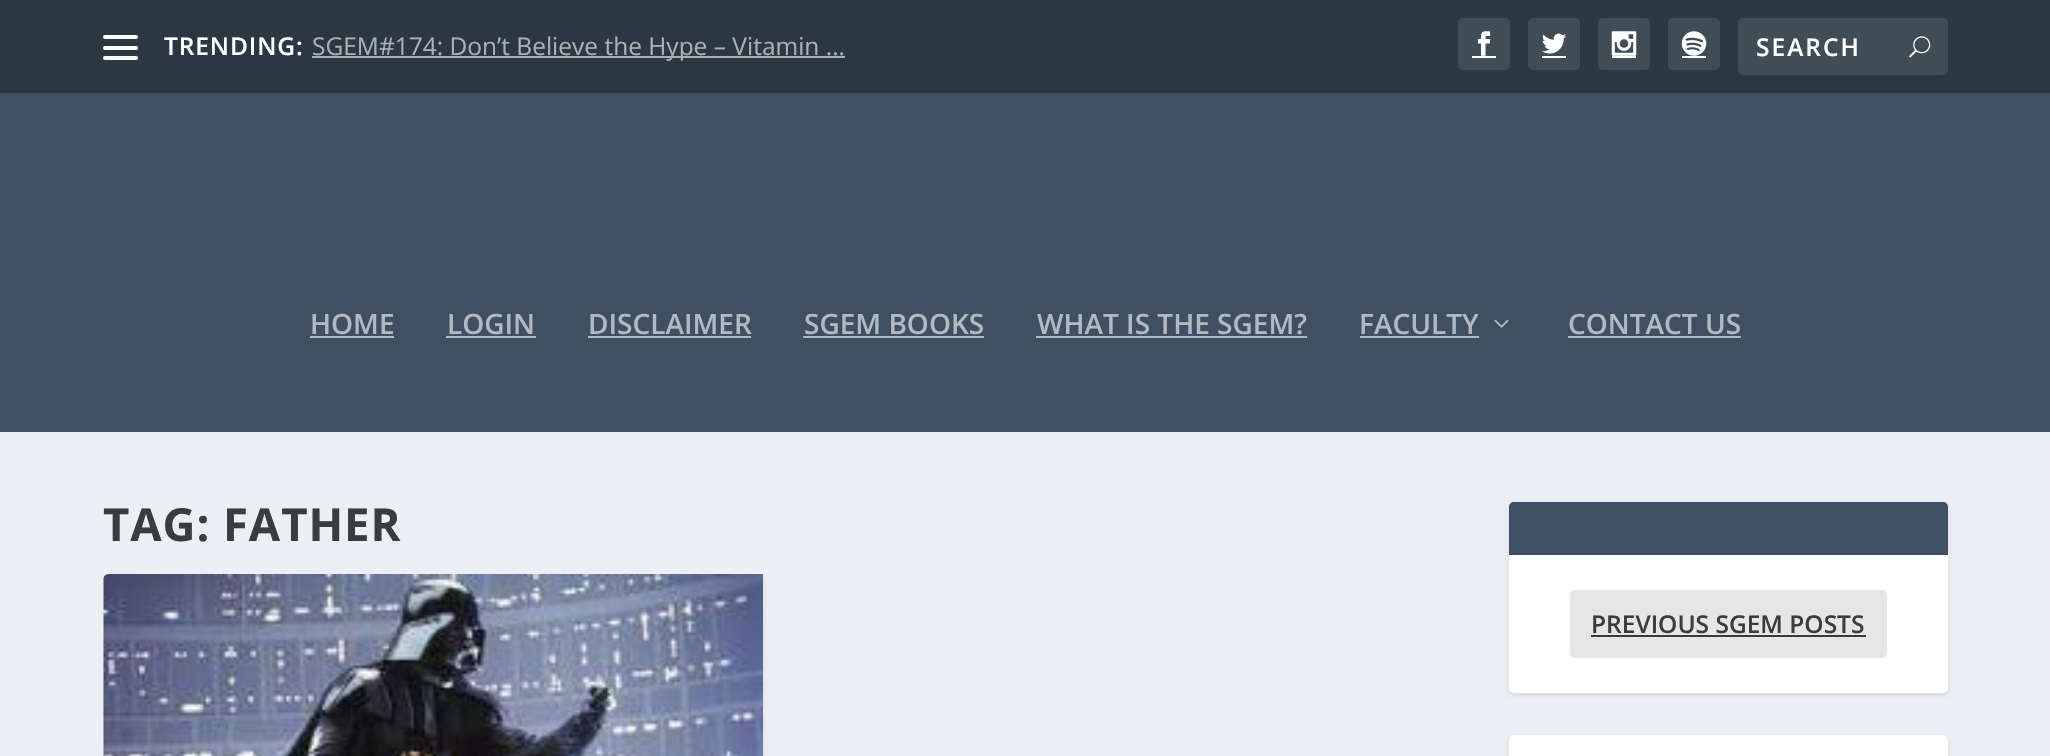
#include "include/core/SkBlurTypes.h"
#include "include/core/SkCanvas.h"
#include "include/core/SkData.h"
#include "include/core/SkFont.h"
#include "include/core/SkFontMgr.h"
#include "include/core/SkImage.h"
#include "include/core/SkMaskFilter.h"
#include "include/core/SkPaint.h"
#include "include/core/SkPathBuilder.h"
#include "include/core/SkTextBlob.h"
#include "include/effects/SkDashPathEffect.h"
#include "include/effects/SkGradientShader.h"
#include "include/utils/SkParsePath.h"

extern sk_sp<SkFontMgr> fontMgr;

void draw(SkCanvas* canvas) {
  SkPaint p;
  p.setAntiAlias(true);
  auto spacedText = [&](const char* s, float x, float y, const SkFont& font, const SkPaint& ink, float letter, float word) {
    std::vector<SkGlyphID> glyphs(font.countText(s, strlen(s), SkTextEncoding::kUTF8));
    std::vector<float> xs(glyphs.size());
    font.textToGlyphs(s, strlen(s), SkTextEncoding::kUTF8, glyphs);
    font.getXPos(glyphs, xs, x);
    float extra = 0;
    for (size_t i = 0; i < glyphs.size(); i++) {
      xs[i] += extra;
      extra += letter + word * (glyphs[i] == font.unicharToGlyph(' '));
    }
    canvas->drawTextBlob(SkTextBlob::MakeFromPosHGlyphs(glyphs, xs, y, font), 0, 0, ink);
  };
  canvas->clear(SkColorSetRGB(236, 240, 245));
  p.setColor(SkColorSetRGB(43, 56, 67));
  canvas->drawRect(SkRect::MakeLTRB(0, 0, 2050, 93), p);
  p.setColor(SK_ColorWHITE);
  canvas->drawRoundRect(SkRect::MakeLTRB(103, 35, 138, 39), 2, 2, p);
  canvas->drawRoundRect(SkRect::MakeLTRB(103, 46, 138, 50), 2, 2, p);
  canvas->drawRoundRect(SkRect::MakeLTRB(103, 56, 138, 60), 2, 2, p);
  p.setColor(SkColorSetRGB(170, 175, 180));
  canvas->drawRect(SkRect::MakeLTRB(312, 56, 845, 58), p);
  p.setColor(SkColorSetRGB(64, 76, 86));
  canvas->drawRoundRect(SkRect::MakeLTRB(1458, 18, 1510, 70), 5, 5, p);
  canvas->drawImageRect(SkImages::DeferredFromEncodedData(SkData::MakeFromFileName("images/1.png")), SkRect::MakeLTRB(1477, 31, 1491, 56), SkSamplingOptions());
  p.setColor(SK_ColorWHITE);
  canvas->drawRect(SkRect::MakeLTRB(1472, 56, 1496, 58), p);
  p.setColor(SkColorSetRGB(64, 76, 86));
  canvas->drawRoundRect(SkRect::MakeLTRB(1528, 18, 1580, 70), 5, 5, p);
  canvas->drawImageRect(SkImages::DeferredFromEncodedData(SkData::MakeFromFileName("images/2.png")), SkRect::MakeLTRB(1542, 33, 1567, 54), SkSamplingOptions());
  p.setColor(SK_ColorWHITE);
  canvas->drawRect(SkRect::MakeLTRB(1542, 56, 1566, 58), p);
  p.setColor(SkColorSetRGB(64, 76, 86));
  canvas->drawRoundRect(SkRect::MakeLTRB(1598, 18, 1650, 70), 5, 5, p);
  canvas->drawImageRect(SkImages::DeferredFromEncodedData(SkData::MakeFromFileName("images/3.png")), SkRect::MakeLTRB(1611, 31, 1637, 56), SkSamplingOptions());
  p.setColor(SK_ColorWHITE);
  canvas->drawRect(SkRect::MakeLTRB(1612, 56, 1636, 58), p);
  p.setColor(SkColorSetRGB(64, 76, 86));
  canvas->drawRoundRect(SkRect::MakeLTRB(1668, 18, 1720, 70), 5, 5, p);
  canvas->drawImageRect(SkImages::DeferredFromEncodedData(SkData::MakeFromFileName("images/4.png")), SkRect::MakeLTRB(1681, 31, 1707, 56), SkSamplingOptions());
  p.setColor(SK_ColorWHITE);
  canvas->drawRect(SkRect::MakeLTRB(1682, 56, 1706, 58), p);
  p.setColor(SkColorSetRGB(64, 76, 86));
  canvas->drawRoundRect(SkRect::MakeLTRB(1738, 18, 1948, 75), 5, 5, p);
  canvas->drawImageRect(SkImages::DeferredFromEncodedData(SkData::MakeFromFileName("images/5.png")), SkRect::MakeLTRB(1909, 36, 1931, 58), SkSamplingOptions());
  p.setColor(SkColorSetRGB(62, 80, 98));
  canvas->drawRect(SkRect::MakeLTRB(0, 93, 2050, 432), p);
  p.setColor(SkColorSetRGB(178, 185, 192));
  canvas->drawRect(SkRect::MakeLTRB(310, 336, 394, 338), p);
  canvas->drawRect(SkRect::MakeLTRB(446, 336, 536, 338), p);
  canvas->drawRect(SkRect::MakeLTRB(588, 336, 751, 338), p);
  canvas->drawRect(SkRect::MakeLTRB(803, 336, 984, 338), p);
  canvas->drawRect(SkRect::MakeLTRB(1036, 336, 1307, 338), p);
  canvas->drawRect(SkRect::MakeLTRB(1360, 336, 1479, 338), p);
  canvas->drawImageRect(SkImages::DeferredFromEncodedData(SkData::MakeFromFileName("images/6.png")), SkRect::MakeLTRB(1494, 319, 1509, 328), SkSamplingOptions());
  canvas->drawRect(SkRect::MakeLTRB(1568, 336, 1741, 338), p);
  canvas->save();
  canvas->clipPath(SkPathBuilder().moveTo(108, 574).lineTo(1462, 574).cubicTo(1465, 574, 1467, 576, 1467, 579).lineTo(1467, 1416).cubicTo(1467, 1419, 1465, 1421, 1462, 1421).lineTo(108, 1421).cubicTo(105, 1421, 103, 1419, 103, 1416).lineTo(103, 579).cubicTo(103, 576, 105, 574, 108, 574).close().detach(), true);
  p.setColor(SkColorSetARGB(26, 0, 0, 0));
  p.setMaskFilter(SkMaskFilter::MakeBlur(kNormal_SkBlurStyle, 2.5f));
  canvas->drawRoundRect(SkRect::MakeLTRB(103, 576, 763, 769), 5, 5, p);
  p.setMaskFilter(nullptr);
  canvas->restore();
  p.setColor(SK_ColorWHITE);
  canvas->drawRoundRect(SkRect::MakeLTRB(103, 574, 763, 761), 5, 5, p);
  canvas->drawImageRect(SkImages::DeferredFromEncodedData(SkData::MakeFromFileName("images/7.png")), SkRect::MakeLTRB(103, 574, 763, 756), SkSamplingOptions());
  p.setColor(SkColorSetARGB(26, 0, 0, 0));
  p.setMaskFilter(SkMaskFilter::MakeBlur(kNormal_SkBlurStyle, 2.5f));
  canvas->drawRoundRect(SkRect::MakeLTRB(1509, 504, 1948, 695), 5, 5, p);
  p.setMaskFilter(nullptr);
  p.setColor(SK_ColorWHITE);
  canvas->drawRoundRect(SkRect::MakeLTRB(1509, 502, 1948, 693), 5, 5, p);
  p.setColor(SkColorSetRGB(62, 80, 98));
  canvas->drawPath(SkPathBuilder().moveTo(1514, 502).lineTo(1943, 502).cubicTo(1946, 502, 1948, 504, 1948, 507).lineTo(1948, 555).lineTo(1509, 555).lineTo(1509, 507).cubicTo(1509, 504, 1511, 502, 1514, 502).close().detach(), p);
  p.setColor(SkColorSetRGB(230, 230, 230));
  canvas->drawRoundRect(SkRect::MakeLTRB(1570, 590, 1887, 658), 5, 5, p);
  p.setColor(SkColorSetRGB(58, 58, 58));
  canvas->drawRect(SkRect::MakeLTRB(1591, 635, 1866, 637), p);
  p.setColor(SkColorSetARGB(26, 0, 0, 0));
  p.setMaskFilter(SkMaskFilter::MakeBlur(kNormal_SkBlurStyle, 2.5f));
  canvas->drawRoundRect(SkRect::MakeLTRB(1509, 737, 1948, 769), 5, 5, p);
  p.setMaskFilter(nullptr);
  p.setColor(SK_ColorWHITE);
  canvas->drawRoundRect(SkRect::MakeLTRB(1509, 735, 1948, 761), 5, 5, p);
  SkFont font1(fontMgr->matchFamilyStyle("Open Sans", SkFontStyle(600, SkFontStyle::kNormal_Width, SkFontStyle::kUpright_Slant)), 24.5f);
  font1.setSubpixel(true);
  spacedText("TRENDING:", 164, 55, font1, p, 0.9f, 0);
  SkFont font2(fontMgr->matchFamilyStyle("Open Sans", SkFontStyle::Normal()), 24.5f);
  font2.setSubpixel(true);
  p.setColor(SkColorSetRGB(170, 176, 180));
  canvas->drawString("SGEM#174: Don’t Believe the Hype – Vitamin ...", 312, 55, font2, p);
  p.setColor(SK_ColorWHITE);
  spacedText("SEARCH", 1756, 56, font1, p, 2, 0);
  SkFont font3(fontMgr->matchFamilyStyle("Open Sans", SkFontStyle(600, SkFontStyle::kNormal_Width, SkFontStyle::kUpright_Slant)), 28);
  font3.setSubpixel(true);
  p.setColor(SkColorSetRGB(178, 185, 192));
  canvas->drawString("HOME", 310, 334, font3, p);
  canvas->drawString("LOGIN", 447, 334, font3, p);
  canvas->drawString("DISCLAIMER", 588, 334, font3, p);
  canvas->drawString("SGEM BOOKS", 804, 334, font3, p);
  canvas->drawString("WHAT IS THE SGEM?", 1037, 334, font3, p);
  canvas->drawString("FACULTY", 1359, 334, font3, p);
  canvas->drawString("CONTACT US", 1568, 334, font3, p);
  SkFont font4(fontMgr->matchFamilyStyle("Open Sans", SkFontStyle::Bold()), 45.5f);
  font4.setSubpixel(true);
  p.setColor(SkColorSetRGB(59, 60, 61));
  spacedText("TAG: FATHER", 103, 541, font4, p, 0.9f, 0);
  canvas->drawString("PREVIOUS SGEM POSTS", 1591, 633, font1, p);
}
